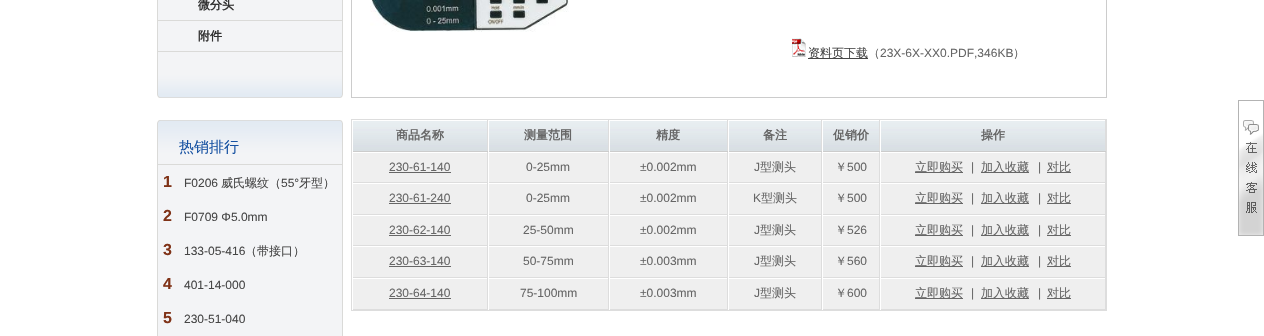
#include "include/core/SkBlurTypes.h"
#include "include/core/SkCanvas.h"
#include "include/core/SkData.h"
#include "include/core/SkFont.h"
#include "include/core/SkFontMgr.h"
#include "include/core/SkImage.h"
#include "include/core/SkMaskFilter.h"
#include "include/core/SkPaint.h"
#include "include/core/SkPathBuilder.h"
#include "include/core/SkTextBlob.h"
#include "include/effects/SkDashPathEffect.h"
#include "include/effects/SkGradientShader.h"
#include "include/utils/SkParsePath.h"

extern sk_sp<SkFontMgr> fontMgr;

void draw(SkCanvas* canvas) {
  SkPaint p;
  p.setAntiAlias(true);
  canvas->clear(SK_ColorWHITE);
  p.setColor(SkColorSetRGB(243, 244, 246));
  canvas->drawRect(SkRect::MakeLTRB(158, 0, 342, 51), p);
  p.setColor(SkColorSetRGB(218, 218, 216));
  canvas->drawRect(SkRect::MakeLTRB(342, 0, 343, 52), p);
  canvas->drawRect(SkRect::MakeLTRB(157, 0, 158, 52), p);
  canvas->drawRect(SkRect::MakeLTRB(158, 20, 342, 21), p);
  canvas->drawRect(SkRect::MakeLTRB(158, 51, 342, 52), p);
  canvas->drawImageRect(SkImages::DeferredFromEncodedData(SkData::MakeFromFileName("images/1.png")), SkRect::MakeLTRB(157, 52, 343, 98), SkSamplingOptions());
  canvas->drawImageRect(SkImages::DeferredFromEncodedData(SkData::MakeFromFileName("images/2.png")), SkRect::MakeLTRB(157, 120, 343, 164), SkSamplingOptions());
  p.setColor(SkColorSetRGB(243, 244, 246));
  canvas->drawRect(SkRect::MakeLTRB(157.5f, 164.5f, 342.5f, 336.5f), p);
  p.setStyle(SkPaint::kStroke_Style);
  p.setStrokeWidth(1);
  p.setColor(SkColorSetRGB(218, 218, 216));
  canvas->drawRect(SkRect::MakeLTRB(157.5f, 164.5f, 342.5f, 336.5f), p);
  p.setColor(SkColorSetRGB(204, 204, 204));
  canvas->drawRect(SkRect::MakeLTRB(351.5f, -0.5f, 1106.5f, 97.5f), p);
  canvas->drawImageRect(SkImages::DeferredFromEncodedData(SkData::MakeFromFileName("images/3.png")), SkRect::MakeLTRB(370, 0, 569, 32), SkSamplingOptions());
  canvas->drawImageRect(SkImages::DeferredFromEncodedData(SkData::MakeFromFileName("images/4.png")), SkRect::MakeLTRB(792, 38, 806, 57), SkSamplingOptions());
  p.setStyle(SkPaint::kFill_Style);
  p.setColor(SkColorSetRGB(70, 70, 70));
  canvas->drawRect(SkRect::MakeLTRB(808, 58, 868, 59), p);
  p.setStyle(SkPaint::kStroke_Style);
  p.setColor(SkColorSetRGB(221, 221, 221));
  canvas->drawRect(SkRect::MakeLTRB(351.5f, 119.5f, 1106.5f, 310.5f), p);
  canvas->drawImageRect(SkImages::DeferredFromEncodedData(SkData::MakeFromFileName("images/5.png")), SkRect::MakeLTRB(353, 121, 487, 151), SkSamplingOptions());
  p.setStyle(SkPaint::kFill_Style);
  canvas->drawRect(SkRect::MakeLTRB(487, 120, 488, 310), p);
  p.setColor(SkColorSetRGB(204, 204, 204));
  canvas->drawRect(SkRect::MakeLTRB(352, 151, 488, 152), p);
  p.setColor(SK_ColorWHITE);
  canvas->drawRect(SkRect::MakeLTRB(352, 151, 353, 152), p);
  canvas->drawImageRect(SkImages::DeferredFromEncodedData(SkData::MakeFromFileName("images/6.png")), SkRect::MakeLTRB(489, 121, 608, 151), SkSamplingOptions());
  p.setColor(SkColorSetRGB(221, 221, 221));
  canvas->drawRect(SkRect::MakeLTRB(608, 120, 609, 183), p);
  p.setColor(SkColorSetRGB(204, 204, 204));
  canvas->drawRect(SkRect::MakeLTRB(488, 151, 609, 152), p);
  p.setColor(SK_ColorWHITE);
  canvas->drawRect(SkRect::MakeLTRB(488, 151, 489, 152), p);
  canvas->drawImageRect(SkImages::DeferredFromEncodedData(SkData::MakeFromFileName("images/7.png")), SkRect::MakeLTRB(610, 121, 727, 151), SkSamplingOptions());
  p.setColor(SkColorSetRGB(221, 221, 221));
  canvas->drawRect(SkRect::MakeLTRB(727, 120, 728, 183), p);
  p.setColor(SkColorSetRGB(204, 204, 204));
  canvas->drawRect(SkRect::MakeLTRB(609, 151, 728, 152), p);
  p.setColor(SK_ColorWHITE);
  canvas->drawRect(SkRect::MakeLTRB(609, 151, 610, 152), p);
  canvas->drawImageRect(SkImages::DeferredFromEncodedData(SkData::MakeFromFileName("images/8.png")), SkRect::MakeLTRB(729, 121, 821, 151), SkSamplingOptions());
  p.setColor(SkColorSetRGB(221, 221, 221));
  canvas->drawRect(SkRect::MakeLTRB(821, 120, 822, 183), p);
  p.setColor(SkColorSetRGB(204, 204, 204));
  canvas->drawRect(SkRect::MakeLTRB(728, 151, 822, 152), p);
  p.setColor(SK_ColorWHITE);
  canvas->drawRect(SkRect::MakeLTRB(728, 151, 729, 152), p);
  canvas->drawImageRect(SkImages::DeferredFromEncodedData(SkData::MakeFromFileName("images/9.png")), SkRect::MakeLTRB(823, 121, 879, 151), SkSamplingOptions());
  p.setColor(SkColorSetRGB(221, 221, 221));
  canvas->drawRect(SkRect::MakeLTRB(879, 120, 880, 183), p);
  p.setColor(SkColorSetRGB(204, 204, 204));
  canvas->drawRect(SkRect::MakeLTRB(822, 151, 880, 152), p);
  p.setColor(SK_ColorWHITE);
  canvas->drawRect(SkRect::MakeLTRB(822, 151, 823, 152), p);
  canvas->drawImageRect(SkImages::DeferredFromEncodedData(SkData::MakeFromFileName("images/10.png")), SkRect::MakeLTRB(881, 121, 1105, 151), SkSamplingOptions());
  p.setColor(SkColorSetRGB(221, 221, 221));
  canvas->drawRect(SkRect::MakeLTRB(1105, 120, 1106, 310), p);
  p.setColor(SkColorSetRGB(204, 204, 204));
  canvas->drawRect(SkRect::MakeLTRB(880, 151, 1106, 152), p);
  p.setColor(SK_ColorWHITE);
  canvas->drawRect(SkRect::MakeLTRB(880, 151, 881, 152), p);
  p.setColor(SkColorSetRGB(239, 239, 239));
  canvas->drawRect(SkRect::MakeLTRB(489, 153, 608, 309), p);
  canvas->drawRect(SkRect::MakeLTRB(610, 153, 727, 309), p);
  canvas->drawRect(SkRect::MakeLTRB(729, 153, 821, 309), p);
  canvas->drawRect(SkRect::MakeLTRB(823, 153, 879, 309), p);
  canvas->drawRect(SkRect::MakeLTRB(353, 153, 487, 182), p);
  p.setColor(SkColorSetRGB(221, 221, 221));
  canvas->drawRect(SkRect::MakeLTRB(352, 182, 1106, 183), p);
  p.setColor(SK_ColorWHITE);
  canvas->drawRect(SkRect::MakeLTRB(352, 182, 353, 183), p);
  p.setColor(SkColorSetRGB(102, 102, 102));
  canvas->drawRect(SkRect::MakeLTRB(389, 172, 451, 173), p);
  p.setColor(SK_ColorWHITE);
  canvas->drawRect(SkRect::MakeLTRB(488, 182, 489, 183), p);
  canvas->drawRect(SkRect::MakeLTRB(609, 182, 610, 183), p);
  canvas->drawRect(SkRect::MakeLTRB(728, 182, 729, 183), p);
  canvas->drawRect(SkRect::MakeLTRB(822, 182, 823, 183), p);
  p.setColor(SkColorSetRGB(239, 239, 239));
  canvas->drawRect(SkRect::MakeLTRB(881, 153, 1105, 182), p);
  p.setColor(SK_ColorWHITE);
  canvas->drawRect(SkRect::MakeLTRB(880, 182, 881, 183), p);
  p.setColor(SkColorSetRGB(102, 102, 102));
  canvas->drawRect(SkRect::MakeLTRB(915, 172, 963, 173), p);
  canvas->drawRect(SkRect::MakeLTRB(981, 172, 1029, 173), p);
  canvas->drawRect(SkRect::MakeLTRB(1047, 172, 1071, 173), p);
  p.setColor(SkColorSetRGB(239, 239, 239));
  canvas->drawRect(SkRect::MakeLTRB(353, 184, 487, 214), p);
  p.setColor(SkColorSetRGB(221, 221, 221));
  canvas->drawRect(SkRect::MakeLTRB(352, 214, 488, 215), p);
  p.setColor(SK_ColorWHITE);
  canvas->drawRect(SkRect::MakeLTRB(352, 214, 353, 215), p);
  p.setColor(SkColorSetRGB(102, 102, 102));
  canvas->drawRect(SkRect::MakeLTRB(389, 203, 451, 204), p);
  p.setColor(SK_ColorWHITE);
  canvas->drawRect(SkRect::MakeLTRB(488, 183, 880, 184), p);
  p.setColor(SkColorSetRGB(221, 221, 221));
  canvas->drawRect(SkRect::MakeLTRB(608, 183, 609, 215), p);
  canvas->drawRect(SkRect::MakeLTRB(488, 214, 609, 215), p);
  p.setColor(SK_ColorWHITE);
  canvas->drawRect(SkRect::MakeLTRB(488, 214, 489, 215), p);
  p.setColor(SkColorSetRGB(221, 221, 221));
  canvas->drawRect(SkRect::MakeLTRB(727, 183, 728, 215), p);
  canvas->drawRect(SkRect::MakeLTRB(609, 214, 728, 215), p);
  p.setColor(SK_ColorWHITE);
  canvas->drawRect(SkRect::MakeLTRB(609, 214, 610, 215), p);
  p.setColor(SkColorSetRGB(221, 221, 221));
  canvas->drawRect(SkRect::MakeLTRB(821, 183, 822, 215), p);
  canvas->drawRect(SkRect::MakeLTRB(728, 214, 822, 215), p);
  p.setColor(SK_ColorWHITE);
  canvas->drawRect(SkRect::MakeLTRB(728, 214, 729, 215), p);
  p.setColor(SkColorSetRGB(221, 221, 221));
  canvas->drawRect(SkRect::MakeLTRB(879, 183, 880, 215), p);
  canvas->drawRect(SkRect::MakeLTRB(822, 214, 1106, 215), p);
  p.setColor(SK_ColorWHITE);
  canvas->drawRect(SkRect::MakeLTRB(822, 214, 823, 215), p);
  p.setColor(SkColorSetRGB(239, 239, 239));
  canvas->drawRect(SkRect::MakeLTRB(881, 184, 1105, 214), p);
  p.setColor(SK_ColorWHITE);
  canvas->drawRect(SkRect::MakeLTRB(880, 214, 881, 215), p);
  p.setColor(SkColorSetRGB(102, 102, 102));
  canvas->drawRect(SkRect::MakeLTRB(915, 203, 963, 204), p);
  canvas->drawRect(SkRect::MakeLTRB(981, 203, 1029, 204), p);
  canvas->drawRect(SkRect::MakeLTRB(1047, 203, 1071, 204), p);
  p.setColor(SkColorSetRGB(239, 239, 239));
  canvas->drawRect(SkRect::MakeLTRB(353, 216, 487, 245), p);
  p.setColor(SkColorSetRGB(221, 221, 221));
  canvas->drawRect(SkRect::MakeLTRB(352, 245, 488, 246), p);
  p.setColor(SK_ColorWHITE);
  canvas->drawRect(SkRect::MakeLTRB(352, 245, 353, 246), p);
  p.setColor(SkColorSetRGB(102, 102, 102));
  canvas->drawRect(SkRect::MakeLTRB(389, 235, 451, 236), p);
  p.setColor(SK_ColorWHITE);
  canvas->drawRect(SkRect::MakeLTRB(488, 215, 880, 216), p);
  p.setColor(SkColorSetRGB(221, 221, 221));
  canvas->drawRect(SkRect::MakeLTRB(608, 215, 609, 246), p);
  canvas->drawRect(SkRect::MakeLTRB(488, 245, 609, 246), p);
  p.setColor(SK_ColorWHITE);
  canvas->drawRect(SkRect::MakeLTRB(488, 245, 489, 246), p);
  p.setColor(SkColorSetRGB(221, 221, 221));
  canvas->drawRect(SkRect::MakeLTRB(727, 215, 728, 246), p);
  canvas->drawRect(SkRect::MakeLTRB(609, 245, 728, 246), p);
  p.setColor(SK_ColorWHITE);
  canvas->drawRect(SkRect::MakeLTRB(609, 245, 610, 246), p);
  p.setColor(SkColorSetRGB(221, 221, 221));
  canvas->drawRect(SkRect::MakeLTRB(821, 215, 822, 246), p);
  canvas->drawRect(SkRect::MakeLTRB(728, 245, 822, 246), p);
  p.setColor(SK_ColorWHITE);
  canvas->drawRect(SkRect::MakeLTRB(728, 245, 729, 246), p);
  p.setColor(SkColorSetRGB(221, 221, 221));
  canvas->drawRect(SkRect::MakeLTRB(879, 215, 880, 246), p);
  canvas->drawRect(SkRect::MakeLTRB(822, 245, 1106, 246), p);
  p.setColor(SK_ColorWHITE);
  canvas->drawRect(SkRect::MakeLTRB(822, 245, 823, 246), p);
  p.setColor(SkColorSetRGB(239, 239, 239));
  canvas->drawRect(SkRect::MakeLTRB(881, 216, 1105, 245), p);
  p.setColor(SK_ColorWHITE);
  canvas->drawRect(SkRect::MakeLTRB(880, 245, 881, 246), p);
  p.setColor(SkColorSetRGB(102, 102, 102));
  canvas->drawRect(SkRect::MakeLTRB(915, 235, 963, 236), p);
  canvas->drawRect(SkRect::MakeLTRB(981, 235, 1029, 236), p);
  canvas->drawRect(SkRect::MakeLTRB(1047, 235, 1071, 236), p);
  p.setColor(SkColorSetRGB(239, 239, 239));
  canvas->drawRect(SkRect::MakeLTRB(353, 247, 487, 277), p);
  p.setColor(SkColorSetRGB(221, 221, 221));
  canvas->drawRect(SkRect::MakeLTRB(352, 277, 488, 278), p);
  p.setColor(SK_ColorWHITE);
  canvas->drawRect(SkRect::MakeLTRB(352, 277, 353, 278), p);
  p.setColor(SkColorSetRGB(102, 102, 102));
  canvas->drawRect(SkRect::MakeLTRB(389, 266, 451, 267), p);
  p.setColor(SK_ColorWHITE);
  canvas->drawRect(SkRect::MakeLTRB(488, 246, 880, 247), p);
  p.setColor(SkColorSetRGB(221, 221, 221));
  canvas->drawRect(SkRect::MakeLTRB(608, 246, 609, 278), p);
  canvas->drawRect(SkRect::MakeLTRB(488, 277, 609, 278), p);
  p.setColor(SK_ColorWHITE);
  canvas->drawRect(SkRect::MakeLTRB(488, 277, 489, 278), p);
  p.setColor(SkColorSetRGB(221, 221, 221));
  canvas->drawRect(SkRect::MakeLTRB(727, 246, 728, 278), p);
  canvas->drawRect(SkRect::MakeLTRB(609, 277, 728, 278), p);
  p.setColor(SK_ColorWHITE);
  canvas->drawRect(SkRect::MakeLTRB(609, 277, 610, 278), p);
  p.setColor(SkColorSetRGB(221, 221, 221));
  canvas->drawRect(SkRect::MakeLTRB(821, 246, 822, 278), p);
  canvas->drawRect(SkRect::MakeLTRB(728, 277, 822, 278), p);
  p.setColor(SK_ColorWHITE);
  canvas->drawRect(SkRect::MakeLTRB(728, 277, 729, 278), p);
  p.setColor(SkColorSetRGB(221, 221, 221));
  canvas->drawRect(SkRect::MakeLTRB(879, 246, 880, 278), p);
  canvas->drawRect(SkRect::MakeLTRB(822, 277, 1106, 278), p);
  p.setColor(SK_ColorWHITE);
  canvas->drawRect(SkRect::MakeLTRB(822, 277, 823, 278), p);
  p.setColor(SkColorSetRGB(239, 239, 239));
  canvas->drawRect(SkRect::MakeLTRB(881, 247, 1105, 277), p);
  p.setColor(SK_ColorWHITE);
  canvas->drawRect(SkRect::MakeLTRB(880, 277, 881, 278), p);
  p.setColor(SkColorSetRGB(102, 102, 102));
  canvas->drawRect(SkRect::MakeLTRB(915, 266, 963, 267), p);
  canvas->drawRect(SkRect::MakeLTRB(981, 266, 1029, 267), p);
  canvas->drawRect(SkRect::MakeLTRB(1047, 266, 1071, 267), p);
  p.setColor(SkColorSetRGB(239, 239, 239));
  canvas->drawRect(SkRect::MakeLTRB(353, 279, 487, 309), p);
  p.setColor(SkColorSetRGB(221, 221, 221));
  canvas->drawRect(SkRect::MakeLTRB(352, 309, 488, 310), p);
  p.setColor(SK_ColorWHITE);
  canvas->drawRect(SkRect::MakeLTRB(352, 309, 353, 310), p);
  p.setColor(SkColorSetRGB(102, 102, 102));
  canvas->drawRect(SkRect::MakeLTRB(389, 298, 451, 299), p);
  p.setColor(SK_ColorWHITE);
  canvas->drawRect(SkRect::MakeLTRB(488, 278, 880, 279), p);
  p.setColor(SkColorSetRGB(221, 221, 221));
  canvas->drawRect(SkRect::MakeLTRB(608, 278, 609, 310), p);
  canvas->drawRect(SkRect::MakeLTRB(488, 309, 609, 310), p);
  p.setColor(SK_ColorWHITE);
  canvas->drawRect(SkRect::MakeLTRB(488, 309, 489, 310), p);
  p.setColor(SkColorSetRGB(221, 221, 221));
  canvas->drawRect(SkRect::MakeLTRB(727, 278, 728, 310), p);
  canvas->drawRect(SkRect::MakeLTRB(609, 309, 728, 310), p);
  p.setColor(SK_ColorWHITE);
  canvas->drawRect(SkRect::MakeLTRB(609, 309, 610, 310), p);
  p.setColor(SkColorSetRGB(221, 221, 221));
  canvas->drawRect(SkRect::MakeLTRB(821, 278, 822, 310), p);
  canvas->drawRect(SkRect::MakeLTRB(728, 309, 822, 310), p);
  p.setColor(SK_ColorWHITE);
  canvas->drawRect(SkRect::MakeLTRB(728, 309, 729, 310), p);
  p.setColor(SkColorSetRGB(221, 221, 221));
  canvas->drawRect(SkRect::MakeLTRB(879, 278, 880, 310), p);
  canvas->drawRect(SkRect::MakeLTRB(822, 309, 1106, 310), p);
  p.setColor(SK_ColorWHITE);
  canvas->drawRect(SkRect::MakeLTRB(822, 309, 823, 310), p);
  p.setColor(SkColorSetRGB(239, 239, 239));
  canvas->drawRect(SkRect::MakeLTRB(881, 279, 1105, 309), p);
  p.setColor(SK_ColorWHITE);
  canvas->drawRect(SkRect::MakeLTRB(880, 309, 881, 310), p);
  p.setColor(SkColorSetRGB(102, 102, 102));
  canvas->drawRect(SkRect::MakeLTRB(915, 298, 963, 299), p);
  canvas->drawRect(SkRect::MakeLTRB(981, 298, 1029, 299), p);
  canvas->drawRect(SkRect::MakeLTRB(1047, 298, 1071, 299), p);
  canvas->drawImageRect(SkImages::DeferredFromEncodedData(SkData::MakeFromFileName("images/11.png")), SkRect::MakeLTRB(1238, 100, 1264, 236), SkSamplingOptions());
  SkFont font1(fontMgr->matchFamilyStyle("WenQuanYi Zen Hei", SkFontStyle::Bold()), 12);
  font1.setSubpixel(true);
  p.setColor(SkColorSetRGB(51, 51, 51));
  canvas->drawString("微分头", 198, 9, font1, p);
  canvas->drawString("附件", 198, 40, font1, p);
  SkFont font2(fontMgr->matchFamilyStyle("WenQuanYi Zen Hei", SkFontStyle(500, SkFontStyle::kNormal_Width, SkFontStyle::kUpright_Slant)), 15);
  font2.setSubpixel(true);
  p.setColor(SkColorSetRGB(23, 82, 162));
  canvas->drawString("热销排行", 179, 152, font2, p);
  SkFont font3(fontMgr->matchFamilyStyle("Liberation Sans", SkFontStyle::Bold()), 16);
  font3.setSubpixel(true);
  p.setColor(SkColorSetRGB(127, 50, 23));
  canvas->drawString("1", 163, 187, font3, p);
  SkFont font4(fontMgr->matchFamilyStyle("Liberation Sans", SkFontStyle::Normal()), 12);
  font4.setSubpixel(true);
  p.setColor(SkColorSetRGB(70, 70, 70));
  canvas->drawString("F0206", 184, 187, font4, p);
  SkFont font5(fontMgr->matchFamilyStyle("WenQuanYi Zen Hei", SkFontStyle(500, SkFontStyle::kNormal_Width, SkFontStyle::kUpright_Slant)), 12);
  font5.setSubpixel(true);
  canvas->drawString("威氏螺纹（", 221, 187, font5, p);
  canvas->drawString("55°", 281, 187, font4, p);
  canvas->drawString("牙型）", 299, 187, font5, p);
  p.setColor(SkColorSetRGB(127, 50, 23));
  canvas->drawString("2", 163, 221, font3, p);
  p.setColor(SkColorSetRGB(70, 70, 70));
  canvas->drawString("F0709 Φ5.0mm", 184, 221, font4, p);
  p.setColor(SkColorSetRGB(127, 50, 23));
  canvas->drawString("3", 163, 255, font3, p);
  p.setColor(SkColorSetRGB(70, 70, 70));
  canvas->drawString("133-05-416", 184, 255, font4, p);
  canvas->drawString("（带接口）", 245, 255, font5, p);
  p.setColor(SkColorSetRGB(127, 50, 23));
  canvas->drawString("4", 163, 289, font3, p);
  p.setColor(SkColorSetRGB(70, 70, 70));
  canvas->drawString("401-14-000", 184, 289, font4, p);
  p.setColor(SkColorSetRGB(127, 50, 23));
  canvas->drawString("5", 163, 323, font3, p);
  p.setColor(SkColorSetRGB(70, 70, 70));
  canvas->drawString("230-51-040", 184, 323, font4, p);
  canvas->drawString("资料页下载", 808, 57, font5, p);
  p.setColor(SkColorSetRGB(102, 102, 102));
  canvas->drawString("（", 868, 57, font5, p);
  canvas->drawString("23X-6X-XX0.PDF,346KB", 880, 57, font4, p);
  canvas->drawString("）", 1013, 57, font5, p);
  canvas->drawString("商品名称", 396, 139, font1, p);
  canvas->drawString("测量范围", 524, 139, font1, p);
  canvas->drawString("精度", 656, 139, font1, p);
  canvas->drawString("备注", 763, 139, font1, p);
  canvas->drawString("促销价", 833, 139, font1, p);
  canvas->drawString("操作", 981, 139, font1, p);
  canvas->drawString("230-61-140", 389, 171, font4, p);
  canvas->drawString("0-25mm", 526, 171, font4, p);
  canvas->drawString("±0.002mm", 640, 171, font4, p);
  canvas->drawString("J", 754, 171, font4, p);
  canvas->drawString("型测头", 760, 171, font5, p);
  canvas->drawString("￥", 835, 171, font5, p);
  canvas->drawString("500", 847, 171, font4, p);
  canvas->drawString("立即购买", 915, 171, font5, p);
  canvas->drawString("|", 971, 171, font4, p);
  canvas->drawString("加入收藏", 981, 171, font5, p);
  canvas->drawString("|", 1038, 171, font4, p);
  canvas->drawString("对比", 1047, 171, font5, p);
  canvas->drawString("230-61-240", 389, 202, font4, p);
  canvas->drawString("0-25mm", 526, 202, font4, p);
  canvas->drawString("±0.002mm", 640, 202, font4, p);
  canvas->drawString("K", 753, 202, font4, p);
  canvas->drawString("型测头", 761, 202, font5, p);
  canvas->drawString("￥", 835, 202, font5, p);
  canvas->drawString("500", 847, 202, font4, p);
  canvas->drawString("立即购买", 915, 202, font5, p);
  canvas->drawString("|", 971, 202, font4, p);
  canvas->drawString("加入收藏", 981, 202, font5, p);
  canvas->drawString("|", 1038, 202, font4, p);
  canvas->drawString("对比", 1047, 202, font5, p);
  canvas->drawString("230-62-140", 389, 234, font4, p);
  canvas->drawString("25-50mm", 523, 234, font4, p);
  canvas->drawString("±0.002mm", 640, 234, font4, p);
  canvas->drawString("J", 754, 234, font4, p);
  canvas->drawString("型测头", 760, 234, font5, p);
  canvas->drawString("￥", 835, 234, font5, p);
  canvas->drawString("526", 847, 234, font4, p);
  canvas->drawString("立即购买", 915, 234, font5, p);
  canvas->drawString("|", 971, 234, font4, p);
  canvas->drawString("加入收藏", 981, 234, font5, p);
  canvas->drawString("|", 1038, 234, font4, p);
  canvas->drawString("对比", 1047, 234, font5, p);
  canvas->drawString("230-63-140", 389, 265, font4, p);
  canvas->drawString("50-75mm", 523, 265, font4, p);
  canvas->drawString("±0.003mm", 640, 265, font4, p);
  canvas->drawString("J", 754, 265, font4, p);
  canvas->drawString("型测头", 760, 265, font5, p);
  canvas->drawString("￥", 835, 265, font5, p);
  canvas->drawString("560", 847, 265, font4, p);
  canvas->drawString("立即购买", 915, 265, font5, p);
  canvas->drawString("|", 971, 265, font4, p);
  canvas->drawString("加入收藏", 981, 265, font5, p);
  canvas->drawString("|", 1038, 265, font4, p);
  canvas->drawString("对比", 1047, 265, font5, p);
  canvas->drawString("230-64-140", 389, 297, font4, p);
  canvas->drawString("75-100mm", 520, 297, font4, p);
  canvas->drawString("±0.003mm", 640, 297, font4, p);
  canvas->drawString("J", 754, 297, font4, p);
  canvas->drawString("型测头", 760, 297, font5, p);
  canvas->drawString("￥", 835, 297, font5, p);
  canvas->drawString("600", 847, 297, font4, p);
  canvas->drawString("立即购买", 915, 297, font5, p);
  canvas->drawString("|", 971, 297, font4, p);
  canvas->drawString("加入收藏", 981, 297, font5, p);
  canvas->drawString("|", 1038, 297, font4, p);
  canvas->drawString("对比", 1047, 297, font5, p);
}
